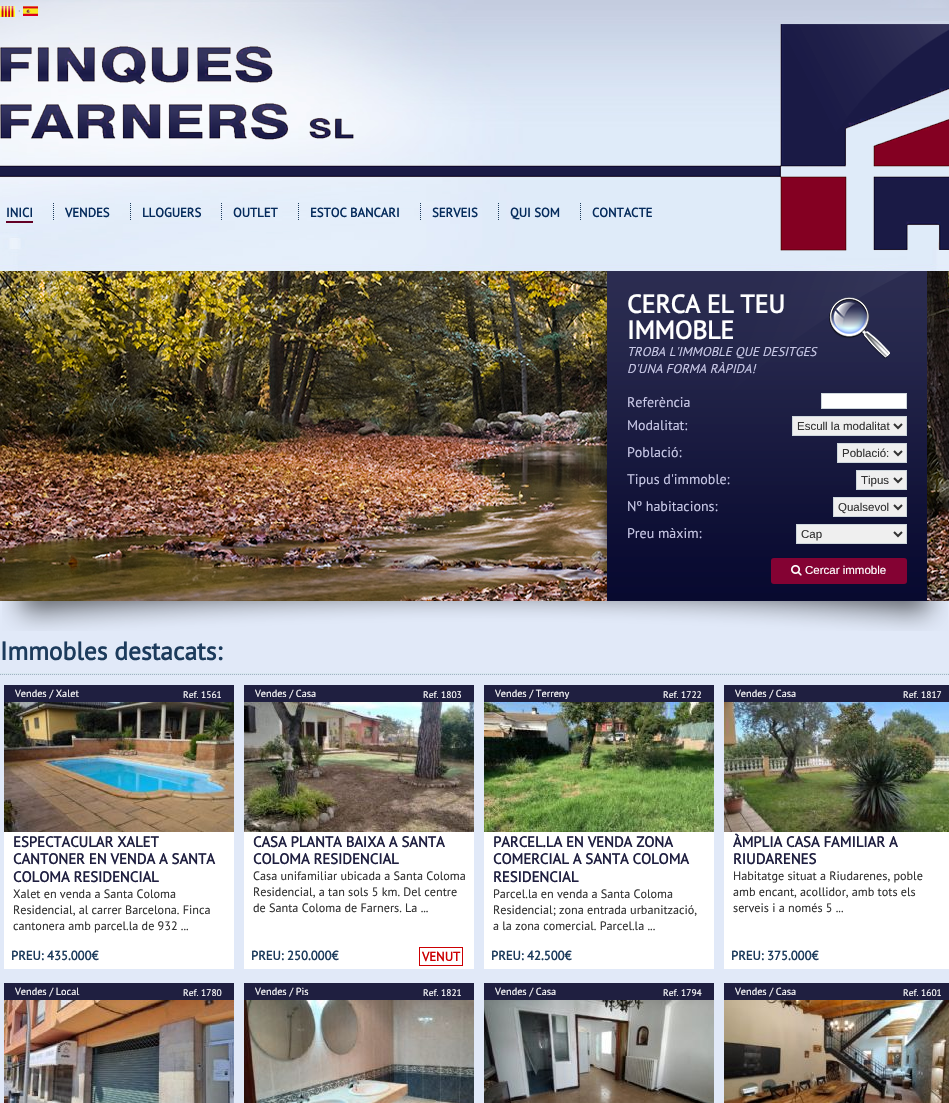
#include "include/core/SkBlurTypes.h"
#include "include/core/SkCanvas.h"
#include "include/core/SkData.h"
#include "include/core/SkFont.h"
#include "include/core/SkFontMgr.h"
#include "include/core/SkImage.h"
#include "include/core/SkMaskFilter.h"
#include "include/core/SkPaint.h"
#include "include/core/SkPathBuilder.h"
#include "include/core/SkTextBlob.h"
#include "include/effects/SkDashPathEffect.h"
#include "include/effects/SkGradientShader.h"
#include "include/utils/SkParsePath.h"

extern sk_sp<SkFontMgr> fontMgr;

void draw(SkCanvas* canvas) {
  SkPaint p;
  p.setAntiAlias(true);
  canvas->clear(SkColorSetRGB(225, 233, 248));
  canvas->drawImageRect(SkImages::DeferredFromEncodedData(SkData::MakeFromFileName("images/1.png")), SkRect::MakeLTRB(0, 0, 949, 271), SkSamplingOptions());
  canvas->drawImageRect(SkImages::DeferredFromEncodedData(SkData::MakeFromFileName("images/2.png")), SkRect::MakeLTRB(0, 6, 15, 17), SkSamplingOptions());
  canvas->drawImageRect(SkImages::DeferredFromEncodedData(SkData::MakeFromFileName("images/3.png")), SkRect::MakeLTRB(23, 6, 38, 16), SkSamplingOptions());
  canvas->drawImageRect(SkImages::DeferredFromEncodedData(SkData::MakeFromFileName("images/4.png")), SkRect::MakeLTRB(0, 24, 949, 251), SkSamplingOptions());
  canvas->drawImageRect(SkImages::DeferredFromEncodedData(SkData::MakeFromFileName("images/5.png")), SkRect::MakeLTRB(0, 46, 354, 140), SkSamplingOptions());
  p.setStyle(SkPaint::kStroke_Style);
  p.setStrokeWidth(1);
  p.setColor(SkColorSetRGB(28, 59, 92));
  p.setPathEffect(SkDashPathEffect::Make({{1, 1}}, 0));
  canvas->drawPath(SkPathBuilder().moveTo(53.5f, 203).lineTo(53.5f, 221).detach(), p);
  p.setPathEffect(nullptr);
  p.setStyle(SkPaint::kFill_Style);
  p.setColor(SkColorSetRGB(99, 0, 37));
  canvas->drawRect(SkRect::MakeLTRB(6, 221, 33, 223), p);
  p.setStyle(SkPaint::kStroke_Style);
  p.setColor(SkColorSetRGB(28, 59, 92));
  p.setPathEffect(SkDashPathEffect::Make({{1, 1}}, 0));
  canvas->drawPath(SkPathBuilder().moveTo(130.5f, 203).lineTo(130.5f, 221).detach(), p);
  p.setPathEffect(nullptr);
  p.setPathEffect(SkDashPathEffect::Make({{1, 1}}, 0));
  canvas->drawPath(SkPathBuilder().moveTo(221.5f, 203).lineTo(221.5f, 221).detach(), p);
  p.setPathEffect(nullptr);
  p.setPathEffect(SkDashPathEffect::Make({{1, 1}}, 0));
  canvas->drawPath(SkPathBuilder().moveTo(298.5f, 203).lineTo(298.5f, 221).detach(), p);
  p.setPathEffect(nullptr);
  p.setPathEffect(SkDashPathEffect::Make({{1, 1}}, 0));
  canvas->drawPath(SkPathBuilder().moveTo(420.5f, 203).lineTo(420.5f, 221).detach(), p);
  p.setPathEffect(nullptr);
  p.setPathEffect(SkDashPathEffect::Make({{1, 1}}, 0));
  canvas->drawPath(SkPathBuilder().moveTo(498.5f, 203).lineTo(498.5f, 221).detach(), p);
  p.setPathEffect(nullptr);
  p.setPathEffect(SkDashPathEffect::Make({{1, 1}}, 0));
  canvas->drawPath(SkPathBuilder().moveTo(580.5f, 203).lineTo(580.5f, 221).detach(), p);
  p.setPathEffect(nullptr);
  canvas->drawImageRect(SkImages::DeferredFromEncodedData(SkData::MakeFromFileName("images/6.png")), SkRect::MakeLTRB(0, 271, 949, 601), SkSamplingOptions());
  canvas->drawImageRect(SkImages::DeferredFromEncodedData(SkData::MakeFromFileName("images/7.png")), SkRect::MakeLTRB(592, 271, 939, 601), SkSamplingOptions());
  canvas->drawImageRect(SkImages::DeferredFromEncodedData(SkData::MakeFromFileName("images/8.png")), SkRect::MakeLTRB(829, 297, 890, 359), SkSamplingOptions());
  p.setStyle(SkPaint::kFill_Style);
  p.setColor(SK_ColorWHITE);
  canvas->drawRect(SkRect::MakeLTRB(821.5f, 393.5f, 906.5f, 408.5f), p);
  p.setStyle(SkPaint::kStroke_Style);
  p.setColor(SkColorSetRGB(206, 215, 220));
  canvas->drawRect(SkRect::MakeLTRB(821.5f, 393.5f, 906.5f, 408.5f), p);
  p.setStyle(SkPaint::kFill_Style);
  p.setColor(SkColorSetRGB(239, 239, 239));
  canvas->drawRect(SkRect::MakeLTRB(792.5f, 416.5f, 906.5f, 435.5f), p);
  p.setStyle(SkPaint::kStroke_Style);
  p.setColor(SkColorSetRGB(206, 215, 220));
  canvas->drawRect(SkRect::MakeLTRB(792.5f, 416.5f, 906.5f, 435.5f), p);
  p.setStrokeWidth(2);
  p.setColor(SkColorSetRGB(51, 51, 51));
  canvas->drawPath(SkPathBuilder().moveTo(894, 424).lineTo(898, 428).lineTo(902, 424).detach(), p);
  p.setStyle(SkPaint::kFill_Style);
  p.setColor(SkColorSetRGB(239, 239, 239));
  canvas->drawRect(SkRect::MakeLTRB(837.5f, 443.5f, 906.5f, 462.5f), p);
  p.setStyle(SkPaint::kStroke_Style);
  p.setStrokeWidth(1);
  p.setColor(SkColorSetRGB(206, 215, 220));
  canvas->drawRect(SkRect::MakeLTRB(837.5f, 443.5f, 906.5f, 462.5f), p);
  p.setStrokeWidth(2);
  p.setColor(SkColorSetRGB(51, 51, 51));
  canvas->drawPath(SkPathBuilder().moveTo(894, 451).lineTo(898, 455).lineTo(902, 451).detach(), p);
  p.setStyle(SkPaint::kFill_Style);
  p.setColor(SkColorSetRGB(239, 239, 239));
  canvas->drawRect(SkRect::MakeLTRB(856.5f, 470.5f, 906.5f, 489.5f), p);
  p.setStyle(SkPaint::kStroke_Style);
  p.setStrokeWidth(1);
  p.setColor(SkColorSetRGB(206, 215, 220));
  canvas->drawRect(SkRect::MakeLTRB(856.5f, 470.5f, 906.5f, 489.5f), p);
  p.setStrokeWidth(2);
  p.setColor(SkColorSetRGB(51, 51, 51));
  canvas->drawPath(SkPathBuilder().moveTo(894, 478).lineTo(898, 482).lineTo(902, 478).detach(), p);
  p.setStyle(SkPaint::kFill_Style);
  p.setColor(SkColorSetRGB(239, 239, 239));
  canvas->drawRect(SkRect::MakeLTRB(833.5f, 497.5f, 906.5f, 516.5f), p);
  p.setStyle(SkPaint::kStroke_Style);
  p.setStrokeWidth(1);
  p.setColor(SkColorSetRGB(206, 215, 220));
  canvas->drawRect(SkRect::MakeLTRB(833.5f, 497.5f, 906.5f, 516.5f), p);
  p.setStrokeWidth(2);
  p.setColor(SkColorSetRGB(51, 51, 51));
  canvas->drawPath(SkPathBuilder().moveTo(894, 505).lineTo(898, 509).lineTo(902, 505).detach(), p);
  p.setStyle(SkPaint::kFill_Style);
  p.setColor(SkColorSetRGB(239, 239, 239));
  canvas->drawRect(SkRect::MakeLTRB(796.5f, 524.5f, 906.5f, 543.5f), p);
  p.setStyle(SkPaint::kStroke_Style);
  p.setStrokeWidth(1);
  p.setColor(SkColorSetRGB(206, 215, 220));
  canvas->drawRect(SkRect::MakeLTRB(796.5f, 524.5f, 906.5f, 543.5f), p);
  p.setStrokeWidth(2);
  p.setColor(SkColorSetRGB(51, 51, 51));
  canvas->drawPath(SkPathBuilder().moveTo(894, 532).lineTo(898, 536).lineTo(902, 532).detach(), p);
  p.setStyle(SkPaint::kFill_Style);
  p.setColor(SkColorSetRGB(132, 2, 51));
  canvas->drawRoundRect(SkRect::MakeLTRB(771, 558, 907, 584), 3, 3, p);
  canvas->drawImageRect(SkImages::DeferredFromEncodedData(SkData::MakeFromFileName("images/9.png")), SkRect::MakeLTRB(791, 564, 802, 576), SkSamplingOptions());
  canvas->drawImageRect(SkImages::DeferredFromEncodedData(SkData::MakeFromFileName("images/10.png")), SkRect::MakeLTRB(2, 601, 948, 631), SkSamplingOptions());
  p.setColor(SkColorSetRGB(216, 230, 240));
  canvas->drawRect(SkRect::MakeLTRB(0, 673, 949, 675), p);
  p.setStyle(SkPaint::kStroke_Style);
  p.setStrokeWidth(1);
  p.setColor(SkColorSetRGB(161, 177, 196));
  p.setPathEffect(SkDashPathEffect::Make({{1, 1}}, 0));
  canvas->drawPath(SkPathBuilder().moveTo(0, 674.5f).lineTo(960, 674.5f).detach(), p);
  p.setPathEffect(nullptr);
  p.setStyle(SkPaint::kFill_Style);
  p.setColor(SK_ColorWHITE);
  canvas->drawRect(SkRect::MakeLTRB(4, 832, 234, 969), p);
  p.setColor(SkColorSetRGB(31, 31, 64));
  canvas->drawRect(SkRect::MakeLTRB(4, 685, 234, 702), p);
  canvas->drawImageRect(SkImages::DeferredFromEncodedData(SkData::MakeFromFileName("images/11.png")), SkRect::MakeLTRB(4, 702, 234, 832), SkSamplingOptions());
  p.setColor(SK_ColorWHITE);
  canvas->drawRect(SkRect::MakeLTRB(244, 832, 474, 969), p);
  p.setColor(SkColorSetRGB(31, 31, 64));
  canvas->drawRect(SkRect::MakeLTRB(244, 685, 474, 702), p);
  canvas->drawImageRect(SkImages::DeferredFromEncodedData(SkData::MakeFromFileName("images/12.png")), SkRect::MakeLTRB(244, 702, 474, 832), SkSamplingOptions());
  p.setStyle(SkPaint::kStroke_Style);
  p.setColor(SkColorSetRGB(204, 0, 3));
  canvas->drawRect(SkRect::MakeLTRB(419.5f, 947.5f, 462.5f, 965.5f), p);
  p.setStyle(SkPaint::kFill_Style);
  p.setColor(SK_ColorWHITE);
  canvas->drawRect(SkRect::MakeLTRB(484, 832, 714, 969), p);
  p.setColor(SkColorSetRGB(31, 31, 64));
  canvas->drawRect(SkRect::MakeLTRB(484, 685, 714, 702), p);
  canvas->drawImageRect(SkImages::DeferredFromEncodedData(SkData::MakeFromFileName("images/13.png")), SkRect::MakeLTRB(484, 702, 714, 832), SkSamplingOptions());
  p.setColor(SK_ColorWHITE);
  canvas->drawRect(SkRect::MakeLTRB(724, 832, 949, 969), p);
  p.setColor(SkColorSetRGB(31, 31, 64));
  canvas->drawRect(SkRect::MakeLTRB(724, 685, 949, 702), p);
  canvas->drawImageRect(SkImages::DeferredFromEncodedData(SkData::MakeFromFileName("images/14.png")), SkRect::MakeLTRB(724, 702, 949, 832), SkSamplingOptions());
  canvas->drawRect(SkRect::MakeLTRB(4, 983, 234, 1000), p);
  canvas->drawImageRect(SkImages::DeferredFromEncodedData(SkData::MakeFromFileName("images/15.png")), SkRect::MakeLTRB(4, 1000, 234, 1103), SkSamplingOptions());
  canvas->drawRect(SkRect::MakeLTRB(244, 983, 474, 1000), p);
  canvas->drawImageRect(SkImages::DeferredFromEncodedData(SkData::MakeFromFileName("images/16.png")), SkRect::MakeLTRB(244, 1000, 474, 1103), SkSamplingOptions());
  canvas->drawRect(SkRect::MakeLTRB(484, 983, 714, 1000), p);
  canvas->drawImageRect(SkImages::DeferredFromEncodedData(SkData::MakeFromFileName("images/17.png")), SkRect::MakeLTRB(484, 1000, 714, 1103), SkSamplingOptions());
  canvas->drawRect(SkRect::MakeLTRB(724, 983, 949, 1000), p);
  canvas->drawImageRect(SkImages::DeferredFromEncodedData(SkData::MakeFromFileName("images/18.png")), SkRect::MakeLTRB(724, 1000, 949, 1103), SkSamplingOptions());
  SkFont font1(fontMgr->matchFamilyStyle("PT Sans", SkFontStyle::Normal()), 10);
  font1.setSubpixel(true);
  p.setColor(SkColorSetRGB(140, 157, 190));
  canvas->drawString("·", 18, 14, font1, p);
  SkFont font2(fontMgr->matchFamilyStyle("PT Sans", SkFontStyle::Bold()), 12.75f);
  font2.setSubpixel(true);
  p.setColor(SkColorSetRGB(5, 43, 92));
  canvas->drawString("INICI", 6, 217, font2, p);
  canvas->drawString("VENDES", 65, 217, font2, p);
  canvas->drawString("LLOGUERS", 142, 217, font2, p);
  canvas->drawString("OUTLET", 233, 217, font2, p);
  canvas->drawString("ESTOC BANCARI", 310, 217, font2, p);
  canvas->drawString("SERVEIS", 432, 217, font2, p);
  canvas->drawString("QUI SOM", 510, 217, font2, p);
  canvas->drawString("CONTACTE", 592, 217, font2, p);
  SkFont font3(fontMgr->matchFamilyStyle("PT Sans", SkFontStyle::Bold()), 25.5f);
  font3.setSubpixel(true);
  p.setColor(SK_ColorWHITE);
  canvas->drawString("CERCA EL TEU", 627, 313, font3, p);
  canvas->drawString("IMMOBLE", 627, 339, font3, p);
  SkFont font4(fontMgr->matchFamilyStyle("PT Sans", SkFontStyle::Italic()), 12.75f);
  font4.setSubpixel(true);
  p.setColor(SkColorSetRGB(200, 200, 230));
  canvas->drawString("TROBA L'IMMOBLE QUE DESITGES", 627, 356, font4, p);
  canvas->drawString("D'UNA FORMA RÀPIDA!", 627, 373, font4, p);
  SkFont font5(fontMgr->matchFamilyStyle("PT Sans", SkFontStyle::Normal()), 14);
  font5.setSubpixel(true);
  canvas->drawString("Referència", 627, 407, font5, p);
  canvas->drawString("Modalitat:", 627, 430, font5, p);
  SkFont font6(fontMgr->matchFamilyStyle("Liberation Sans", SkFontStyle::Normal()), 11.5f);
  font6.setSubpixel(true);
  p.setColor(SkColorSetRGB(51, 51, 51));
  canvas->drawString("Escull la modalitat", 797, 430, font6, p);
  p.setColor(SkColorSetRGB(200, 200, 230));
  canvas->drawString("Població:", 627, 457, font5, p);
  p.setColor(SkColorSetRGB(51, 51, 51));
  canvas->drawString("Població:", 842, 457, font6, p);
  p.setColor(SkColorSetRGB(200, 200, 230));
  canvas->drawString("Tipus d'immoble:", 627, 484, font5, p);
  p.setColor(SkColorSetRGB(51, 51, 51));
  canvas->drawString("Tipus", 861, 484, font6, p);
  p.setColor(SkColorSetRGB(200, 200, 230));
  canvas->drawString("Nº habitacions:", 627, 511, font5, p);
  p.setColor(SkColorSetRGB(51, 51, 51));
  canvas->drawString("Qualsevol", 838, 511, font6, p);
  p.setColor(SkColorSetRGB(200, 200, 230));
  canvas->drawString("Preu màxim:", 627, 538, font5, p);
  p.setColor(SkColorSetRGB(51, 51, 51));
  canvas->drawString("Cap", 801, 538, font6, p);
  p.setColor(SK_ColorWHITE);
  canvas->drawString("Cercar immoble", 805, 574, font6, p);
  p.setColor(SkColorSetRGB(28, 59, 92));
  canvas->drawString("Immobles destacats:", 0, 660, font3, p);
  SkFont font7(fontMgr->matchFamilyStyle("PT Sans", SkFontStyle::Normal()), 10.25f);
  font7.setSubpixel(true);
  p.setColor(SK_ColorWHITE);
  canvas->drawString("Vendes / Xalet", 15, 697, font7, p);
  SkFont font8(fontMgr->matchFamilyStyle("PT Sans", SkFontStyle::Normal()), 9.5f);
  font8.setSubpixel(true);
  canvas->drawString("Ref. 1561", 183, 698, font8, p);
  SkFont font9(fontMgr->matchFamilyStyle("PT Sans", SkFontStyle::Bold()), 14.75f);
  font9.setSubpixel(true);
  p.setColor(SkColorSetRGB(31, 31, 64));
  canvas->drawString("ESPECTACULAR XALET", 13, 847, font9, p);
  canvas->drawString("CANTONER EN VENDA A SANTA", 13, 864, font9, p);
  canvas->drawString("COLOMA RESIDENCIAL", 13, 882, font9, p);
  SkFont font10(fontMgr->matchFamilyStyle("PT Sans", SkFontStyle::Normal()), 12.2f);
  font10.setSubpixel(true);
  p.setColor(SkColorSetRGB(51, 51, 51));
  canvas->drawString("Xalet en venda a Santa Coloma", 13, 898, font10, p);
  canvas->drawString("Residencial, al carrer Barcelona. Finca", 13, 914, font10, p);
  canvas->drawString("cantonera amb parcel.la de 932 ...", 13, 930, font10, p);
  p.setColor(SkColorSetRGB(28, 59, 92));
  canvas->drawString("PREU: 435.000€", 11, 960, font2, p);
  p.setColor(SK_ColorWHITE);
  canvas->drawString("Vendes / Casa", 255, 697, font7, p);
  canvas->drawString("Ref. 1803", 423, 698, font8, p);
  p.setColor(SkColorSetRGB(31, 31, 64));
  canvas->drawString("CASA PLANTA BAIXA A SANTA", 253, 847, font9, p);
  canvas->drawString("COLOMA RESIDENCIAL", 253, 864, font9, p);
  p.setColor(SkColorSetRGB(51, 51, 51));
  canvas->drawString("Casa unifamiliar ubicada a Santa Coloma", 253, 880, font10, p);
  canvas->drawString("Residencial, a tan sols 5 km. Del centre", 253, 896, font10, p);
  canvas->drawString("de Santa Coloma de Farners. La ...", 253, 912, font10, p);
  p.setColor(SkColorSetRGB(28, 59, 92));
  canvas->drawString("PREU: 250.000€", 251, 960, font2, p);
  p.setColor(SkColorSetRGB(204, 0, 3));
  canvas->drawString("VENUT", 422, 961, font2, p);
  p.setColor(SK_ColorWHITE);
  canvas->drawString("Vendes / Terreny", 495, 697, font7, p);
  canvas->drawString("Ref. 1722", 663, 698, font8, p);
  p.setColor(SkColorSetRGB(31, 31, 64));
  canvas->drawString("PARCEL.LA EN VENDA ZONA", 493, 847, font9, p);
  canvas->drawString("COMERCIAL A SANTA COLOMA", 493, 864, font9, p);
  canvas->drawString("RESIDENCIAL", 493, 882, font9, p);
  p.setColor(SkColorSetRGB(51, 51, 51));
  canvas->drawString("Parcel.la en venda a Santa Coloma", 493, 898, font10, p);
  canvas->drawString("Residencial; zona entrada urbanització,", 493, 914, font10, p);
  canvas->drawString("a la zona comercial. Parcel.la ...", 493, 930, font10, p);
  p.setColor(SkColorSetRGB(28, 59, 92));
  canvas->drawString("PREU: 42.500€", 491, 960, font2, p);
  p.setColor(SK_ColorWHITE);
  canvas->drawString("Vendes / Casa", 735, 697, font7, p);
  canvas->drawString("Ref. 1817", 903, 698, font8, p);
  p.setColor(SkColorSetRGB(31, 31, 64));
  canvas->drawString("ÀMPLIA CASA FAMILIAR A", 733, 847, font9, p);
  canvas->drawString("RIUDARENES", 733, 864, font9, p);
  p.setColor(SkColorSetRGB(51, 51, 51));
  canvas->drawString("Habitatge situat a Riudarenes, poble", 733, 880, font10, p);
  canvas->drawString("amb encant, acollidor, amb tots els", 733, 896, font10, p);
  canvas->drawString("serveis i a només 5 ...", 733, 912, font10, p);
  p.setColor(SkColorSetRGB(28, 59, 92));
  canvas->drawString("PREU: 375.000€", 731, 960, font2, p);
  p.setColor(SK_ColorWHITE);
  canvas->drawString("Vendes / Local", 15, 995, font7, p);
  canvas->drawString("Ref. 1780", 183, 996, font8, p);
  canvas->drawString("Vendes / Pis", 255, 995, font7, p);
  canvas->drawString("Ref. 1821", 423, 996, font8, p);
  canvas->drawString("Vendes / Casa", 495, 995, font7, p);
  canvas->drawString("Ref. 1794", 663, 996, font8, p);
  canvas->drawString("Vendes / Casa", 735, 995, font7, p);
  canvas->drawString("Ref. 1601", 903, 996, font8, p);
}
